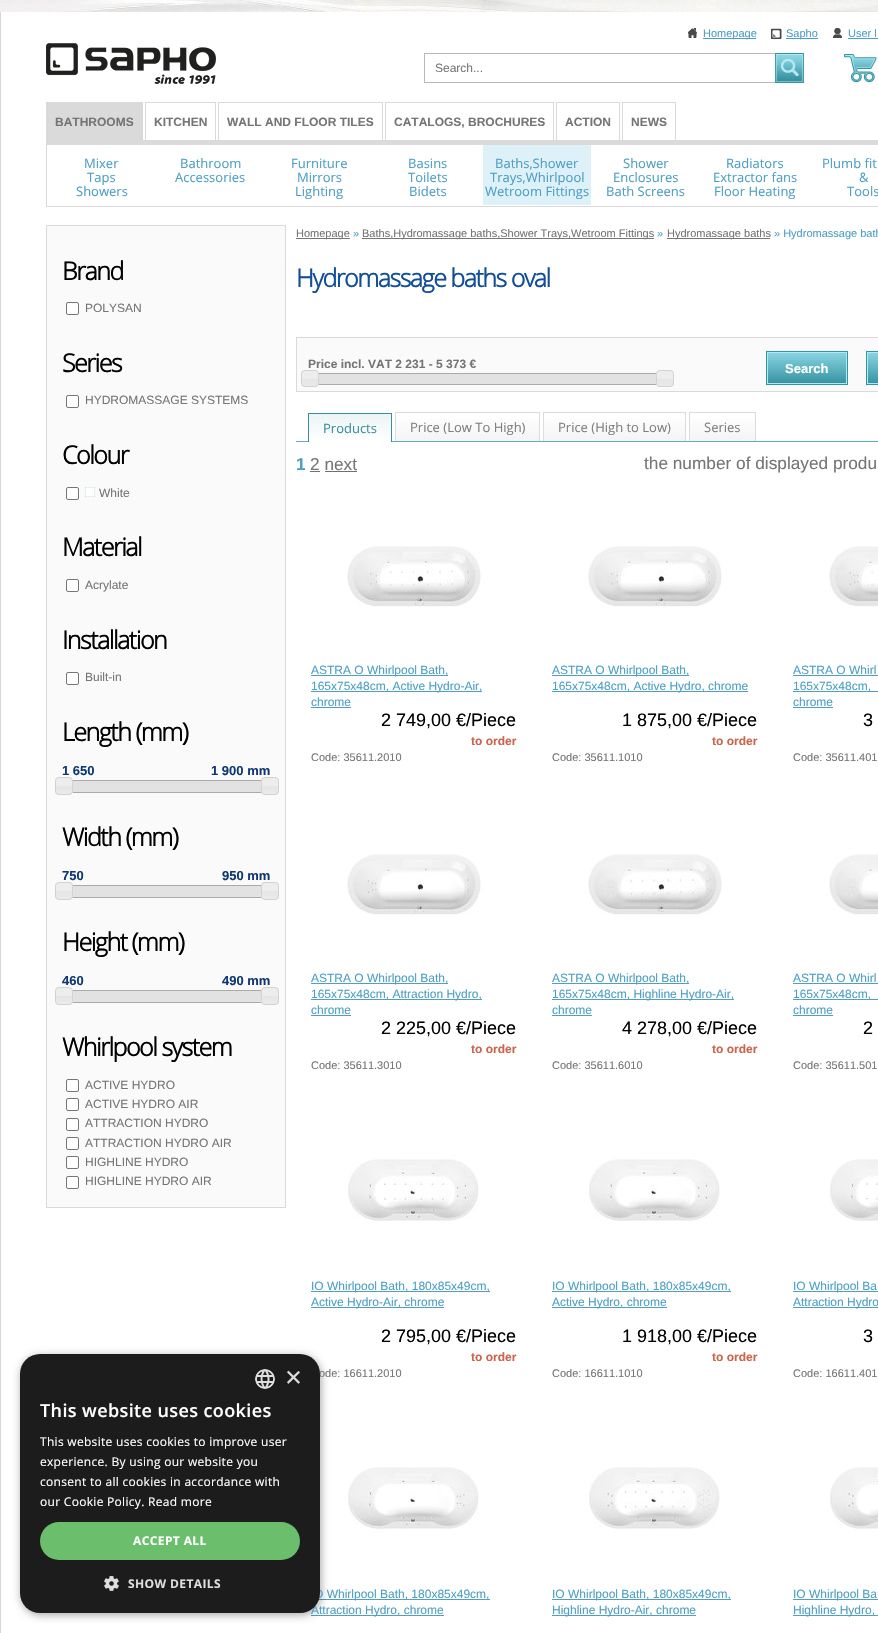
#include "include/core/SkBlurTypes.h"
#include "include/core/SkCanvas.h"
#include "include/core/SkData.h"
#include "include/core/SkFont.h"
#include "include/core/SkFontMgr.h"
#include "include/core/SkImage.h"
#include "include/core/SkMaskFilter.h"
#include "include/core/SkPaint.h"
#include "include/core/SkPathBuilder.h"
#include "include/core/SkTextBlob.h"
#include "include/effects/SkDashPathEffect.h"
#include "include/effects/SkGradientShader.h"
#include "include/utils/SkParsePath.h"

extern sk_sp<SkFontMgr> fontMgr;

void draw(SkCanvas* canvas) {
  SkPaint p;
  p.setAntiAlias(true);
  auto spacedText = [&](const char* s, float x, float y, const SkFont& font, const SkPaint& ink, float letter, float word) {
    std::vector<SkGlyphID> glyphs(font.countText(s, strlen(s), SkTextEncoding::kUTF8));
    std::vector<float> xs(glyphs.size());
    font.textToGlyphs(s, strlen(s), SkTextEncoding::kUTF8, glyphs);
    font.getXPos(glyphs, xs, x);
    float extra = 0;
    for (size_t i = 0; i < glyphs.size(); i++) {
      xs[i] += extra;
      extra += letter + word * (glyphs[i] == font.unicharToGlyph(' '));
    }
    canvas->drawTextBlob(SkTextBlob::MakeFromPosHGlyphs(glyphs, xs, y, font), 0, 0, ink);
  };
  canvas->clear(SK_ColorWHITE);
  canvas->drawImageRect(SkImages::DeferredFromEncodedData(SkData::MakeFromFileName("images/1.png")), SkRect::MakeLTRB(0, 0, 878, 12), SkSamplingOptions());
  p.setColor(SkColorSetRGB(216, 216, 216));
  canvas->drawRect(SkRect::MakeLTRB(0, 12, 1, 1633), p);
  canvas->drawImageRect(SkImages::DeferredFromEncodedData(SkData::MakeFromFileName("images/2.png")), SkRect::MakeLTRB(688, 28, 697, 38), SkSamplingOptions());
  p.setColor(SkColorSetRGB(77, 159, 196));
  canvas->drawRect(SkRect::MakeLTRB(703, 38, 756, 39), p);
  canvas->drawImageRect(SkImages::DeferredFromEncodedData(SkData::MakeFromFileName("images/3.png")), SkRect::MakeLTRB(771, 28, 782, 39), SkSamplingOptions());
  canvas->drawRect(SkRect::MakeLTRB(786, 38, 818, 39), p);
  canvas->drawImageRect(SkImages::DeferredFromEncodedData(SkData::MakeFromFileName("images/4.png")), SkRect::MakeLTRB(833, 28, 842, 38), SkSamplingOptions());
  canvas->drawRect(SkRect::MakeLTRB(848, 38, 878, 39), p);
  canvas->drawImageRect(SkImages::DeferredFromEncodedData(SkData::MakeFromFileName("images/5.png")), SkRect::MakeLTRB(46, 43, 216, 84), SkSamplingOptions());
  p.setColor(SkColorSetRGB(184, 184, 184));
  canvas->drawRect(SkRect::MakeLTRB(424, 53, 775, 54), p);
  canvas->drawRect(SkRect::MakeLTRB(424, 82, 775, 83), p);
  canvas->drawRect(SkRect::MakeLTRB(424, 53, 425, 83), p);
  canvas->drawImageRect(SkImages::DeferredFromEncodedData(SkData::MakeFromFileName("images/6.png")), SkRect::MakeLTRB(775, 53, 804, 83), SkSamplingOptions());
  canvas->drawImageRect(SkImages::DeferredFromEncodedData(SkData::MakeFromFileName("images/7.png")), SkRect::MakeLTRB(844, 54, 877, 82), SkSamplingOptions());
  p.setColor(SkColorSetRGB(218, 218, 218));
  canvas->drawRect(SkRect::MakeLTRB(46, 102, 143, 140), p);
  p.setStyle(SkPaint::kStroke_Style);
  p.setStrokeWidth(1);
  canvas->drawRect(SkRect::MakeLTRB(145.5f, 102.5f, 215.5f, 141.5f), p);
  canvas->drawRect(SkRect::MakeLTRB(218.5f, 102.5f, 382.5f, 141.5f), p);
  canvas->drawRect(SkRect::MakeLTRB(385.5f, 102.5f, 553.5f, 141.5f), p);
  canvas->drawRect(SkRect::MakeLTRB(556.5f, 102.5f, 619.5f, 141.5f), p);
  canvas->drawRect(SkRect::MakeLTRB(622.5f, 102.5f, 675.5f, 141.5f), p);
  p.setStyle(SkPaint::kFill_Style);
  canvas->drawRect(SkRect::MakeLTRB(46, 140, 878, 145), p);
  canvas->drawRect(SkRect::MakeLTRB(46, 206, 878, 207), p);
  canvas->drawRect(SkRect::MakeLTRB(46, 140, 47, 207), p);
  p.setColor(SkColorSetRGB(222, 240, 248));
  canvas->drawRect(SkRect::MakeLTRB(483, 145, 591, 205), p);
  p.setColor(SkColorSetRGB(117, 117, 117));
  canvas->drawRect(SkRect::MakeLTRB(296, 238, 350, 239), p);
  canvas->drawRect(SkRect::MakeLTRB(362, 238, 654, 239), p);
  canvas->drawRect(SkRect::MakeLTRB(667, 238, 770, 239), p);
  p.setColor(SkColorSetRGB(250, 250, 250));
  canvas->drawRect(SkRect::MakeLTRB(46.5f, 225.5f, 285.5f, 1207.5f), p);
  p.setStyle(SkPaint::kStroke_Style);
  p.setColor(SkColorSetRGB(218, 218, 218));
  canvas->drawRect(SkRect::MakeLTRB(46.5f, 225.5f, 285.5f, 1207.5f), p);
  p.setStyle(SkPaint::kFill_Style);
  p.setColor(SK_ColorWHITE);
  canvas->drawRoundRect(SkRect::MakeLTRB(66.5f, 302.5f, 78.5f, 314.5f), 1.5f, 1.5f, p);
  p.setStyle(SkPaint::kStroke_Style);
  p.setColor(SkColorSetRGB(118, 118, 118));
  canvas->drawRoundRect(SkRect::MakeLTRB(66.5f, 302.5f, 78.5f, 314.5f), 1.5f, 1.5f, p);
  p.setStyle(SkPaint::kFill_Style);
  p.setColor(SK_ColorWHITE);
  canvas->drawRoundRect(SkRect::MakeLTRB(66.5f, 395.5f, 78.5f, 407.5f), 1.5f, 1.5f, p);
  p.setStyle(SkPaint::kStroke_Style);
  p.setColor(SkColorSetRGB(118, 118, 118));
  canvas->drawRoundRect(SkRect::MakeLTRB(66.5f, 395.5f, 78.5f, 407.5f), 1.5f, 1.5f, p);
  p.setStyle(SkPaint::kFill_Style);
  p.setColor(SK_ColorWHITE);
  canvas->drawRoundRect(SkRect::MakeLTRB(66.5f, 487.5f, 78.5f, 499.5f), 1.5f, 1.5f, p);
  p.setStyle(SkPaint::kStroke_Style);
  p.setColor(SkColorSetRGB(118, 118, 118));
  canvas->drawRoundRect(SkRect::MakeLTRB(66.5f, 487.5f, 78.5f, 499.5f), 1.5f, 1.5f, p);
  canvas->drawImageRect(SkImages::DeferredFromEncodedData(SkData::MakeFromFileName("images/8.png")), SkRect::MakeLTRB(85, 487, 95, 497), SkSamplingOptions());
  p.setStyle(SkPaint::kFill_Style);
  p.setColor(SK_ColorWHITE);
  canvas->drawRoundRect(SkRect::MakeLTRB(66.5f, 579.5f, 78.5f, 591.5f), 1.5f, 1.5f, p);
  p.setStyle(SkPaint::kStroke_Style);
  p.setColor(SkColorSetRGB(118, 118, 118));
  canvas->drawRoundRect(SkRect::MakeLTRB(66.5f, 579.5f, 78.5f, 591.5f), 1.5f, 1.5f, p);
  p.setStyle(SkPaint::kFill_Style);
  p.setColor(SK_ColorWHITE);
  canvas->drawRoundRect(SkRect::MakeLTRB(66.5f, 672.5f, 78.5f, 684.5f), 1.5f, 1.5f, p);
  p.setStyle(SkPaint::kStroke_Style);
  p.setColor(SkColorSetRGB(118, 118, 118));
  canvas->drawRoundRect(SkRect::MakeLTRB(66.5f, 672.5f, 78.5f, 684.5f), 1.5f, 1.5f, p);
  p.setColor(SkColorSetRGB(170, 170, 170));
  canvas->drawRect(SkRect::MakeLTRB(62.5f, 780.5f, 269.5f, 792.5f), p);
  p.setStyle(SkPaint::kFill_Style);
  p.setColor(SkColorSetRGB(226, 226, 226));
  canvas->drawRect(SkRect::MakeLTRB(72, 781, 262, 792), p);
  canvas->drawImageRect(SkImages::DeferredFromEncodedData(SkData::MakeFromFileName("images/9.png")), SkRect::MakeLTRB(55, 777, 73, 795), SkSamplingOptions());
  p.setStyle(SkPaint::kStroke_Style);
  p.setColor(SkColorSetRGB(211, 211, 211));
  canvas->drawRoundRect(SkRect::MakeLTRB(55.5f, 777.5f, 72.5f, 794.5f), 3.5f, 3.5f, p);
  canvas->drawImageRect(SkImages::DeferredFromEncodedData(SkData::MakeFromFileName("images/10.png")), SkRect::MakeLTRB(261, 777, 279, 795), SkSamplingOptions());
  canvas->drawRoundRect(SkRect::MakeLTRB(261.5f, 777.5f, 278.5f, 794.5f), 3.5f, 3.5f, p);
  p.setColor(SkColorSetRGB(170, 170, 170));
  canvas->drawRect(SkRect::MakeLTRB(62.5f, 885.5f, 269.5f, 897.5f), p);
  p.setStyle(SkPaint::kFill_Style);
  p.setColor(SkColorSetRGB(226, 226, 226));
  canvas->drawRect(SkRect::MakeLTRB(72, 886, 262, 897), p);
  canvas->drawImageRect(SkImages::DeferredFromEncodedData(SkData::MakeFromFileName("images/9.png")), SkRect::MakeLTRB(55, 882, 73, 900), SkSamplingOptions());
  p.setStyle(SkPaint::kStroke_Style);
  p.setColor(SkColorSetRGB(211, 211, 211));
  canvas->drawRoundRect(SkRect::MakeLTRB(55.5f, 882.5f, 72.5f, 899.5f), 3.5f, 3.5f, p);
  canvas->drawImageRect(SkImages::DeferredFromEncodedData(SkData::MakeFromFileName("images/10.png")), SkRect::MakeLTRB(261, 882, 279, 900), SkSamplingOptions());
  canvas->drawRoundRect(SkRect::MakeLTRB(261.5f, 882.5f, 278.5f, 899.5f), 3.5f, 3.5f, p);
  p.setColor(SkColorSetRGB(170, 170, 170));
  canvas->drawRect(SkRect::MakeLTRB(62.5f, 990.5f, 269.5f, 1002.5f), p);
  p.setStyle(SkPaint::kFill_Style);
  p.setColor(SkColorSetRGB(226, 226, 226));
  canvas->drawRect(SkRect::MakeLTRB(72, 991, 262, 1002), p);
  canvas->drawImageRect(SkImages::DeferredFromEncodedData(SkData::MakeFromFileName("images/9.png")), SkRect::MakeLTRB(55, 987, 73, 1005), SkSamplingOptions());
  p.setStyle(SkPaint::kStroke_Style);
  p.setColor(SkColorSetRGB(211, 211, 211));
  canvas->drawRoundRect(SkRect::MakeLTRB(55.5f, 987.5f, 72.5f, 1004.5f), 3.5f, 3.5f, p);
  canvas->drawImageRect(SkImages::DeferredFromEncodedData(SkData::MakeFromFileName("images/10.png")), SkRect::MakeLTRB(261, 987, 279, 1005), SkSamplingOptions());
  canvas->drawRoundRect(SkRect::MakeLTRB(261.5f, 987.5f, 278.5f, 1004.5f), 3.5f, 3.5f, p);
  p.setStyle(SkPaint::kFill_Style);
  p.setColor(SK_ColorWHITE);
  canvas->drawRoundRect(SkRect::MakeLTRB(66.5f, 1079.5f, 78.5f, 1091.5f), 1.5f, 1.5f, p);
  p.setStyle(SkPaint::kStroke_Style);
  p.setColor(SkColorSetRGB(118, 118, 118));
  canvas->drawRoundRect(SkRect::MakeLTRB(66.5f, 1079.5f, 78.5f, 1091.5f), 1.5f, 1.5f, p);
  p.setStyle(SkPaint::kFill_Style);
  p.setColor(SK_ColorWHITE);
  canvas->drawRoundRect(SkRect::MakeLTRB(66.5f, 1098.5f, 78.5f, 1110.5f), 1.5f, 1.5f, p);
  p.setStyle(SkPaint::kStroke_Style);
  p.setColor(SkColorSetRGB(118, 118, 118));
  canvas->drawRoundRect(SkRect::MakeLTRB(66.5f, 1098.5f, 78.5f, 1110.5f), 1.5f, 1.5f, p);
  p.setStyle(SkPaint::kFill_Style);
  p.setColor(SK_ColorWHITE);
  canvas->drawRoundRect(SkRect::MakeLTRB(66.5f, 1118.5f, 78.5f, 1130.5f), 1.5f, 1.5f, p);
  p.setStyle(SkPaint::kStroke_Style);
  p.setColor(SkColorSetRGB(118, 118, 118));
  canvas->drawRoundRect(SkRect::MakeLTRB(66.5f, 1118.5f, 78.5f, 1130.5f), 1.5f, 1.5f, p);
  p.setStyle(SkPaint::kFill_Style);
  p.setColor(SK_ColorWHITE);
  canvas->drawRoundRect(SkRect::MakeLTRB(66.5f, 1137.5f, 78.5f, 1149.5f), 1.5f, 1.5f, p);
  p.setStyle(SkPaint::kStroke_Style);
  p.setColor(SkColorSetRGB(118, 118, 118));
  canvas->drawRoundRect(SkRect::MakeLTRB(66.5f, 1137.5f, 78.5f, 1149.5f), 1.5f, 1.5f, p);
  p.setStyle(SkPaint::kFill_Style);
  p.setColor(SK_ColorWHITE);
  canvas->drawRoundRect(SkRect::MakeLTRB(66.5f, 1156.5f, 78.5f, 1168.5f), 1.5f, 1.5f, p);
  p.setStyle(SkPaint::kStroke_Style);
  p.setColor(SkColorSetRGB(118, 118, 118));
  canvas->drawRoundRect(SkRect::MakeLTRB(66.5f, 1156.5f, 78.5f, 1168.5f), 1.5f, 1.5f, p);
  p.setStyle(SkPaint::kFill_Style);
  p.setColor(SK_ColorWHITE);
  canvas->drawRoundRect(SkRect::MakeLTRB(66.5f, 1176.5f, 78.5f, 1188.5f), 1.5f, 1.5f, p);
  p.setStyle(SkPaint::kStroke_Style);
  p.setColor(SkColorSetRGB(118, 118, 118));
  canvas->drawRoundRect(SkRect::MakeLTRB(66.5f, 1176.5f, 78.5f, 1188.5f), 1.5f, 1.5f, p);
  p.setStyle(SkPaint::kFill_Style);
  p.setColor(SkColorSetRGB(250, 250, 250));
  canvas->drawRect(SkRect::MakeLTRB(296.5f, 337.5f, 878.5f, 391.5f), p);
  p.setStyle(SkPaint::kStroke_Style);
  p.setColor(SkColorSetRGB(218, 218, 218));
  canvas->drawRect(SkRect::MakeLTRB(296.5f, 337.5f, 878.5f, 391.5f), p);
  p.setColor(SkColorSetRGB(170, 170, 170));
  canvas->drawRect(SkRect::MakeLTRB(308.5f, 373.5f, 664.5f, 384.5f), p);
  p.setStyle(SkPaint::kFill_Style);
  p.setColor(SkColorSetRGB(226, 226, 226));
  canvas->drawRect(SkRect::MakeLTRB(318, 374, 657, 384), p);
  canvas->drawImageRect(SkImages::DeferredFromEncodedData(SkData::MakeFromFileName("images/11.png")), SkRect::MakeLTRB(301, 370, 319, 387), SkSamplingOptions());
  p.setStyle(SkPaint::kStroke_Style);
  p.setColor(SkColorSetRGB(211, 211, 211));
  canvas->drawRoundRect(SkRect::MakeLTRB(301.5f, 370.5f, 318.5f, 386.5f), 3.5f, 3.5f, p);
  canvas->drawImageRect(SkImages::DeferredFromEncodedData(SkData::MakeFromFileName("images/12.png")), SkRect::MakeLTRB(656, 370, 674, 387), SkSamplingOptions());
  canvas->drawRoundRect(SkRect::MakeLTRB(656.5f, 370.5f, 673.5f, 386.5f), 3.5f, 3.5f, p);
  p.setStyle(SkPaint::kFill_Style);
  {
    const SkColor colors[] = {SkColorSetRGB(138, 214, 229), SkColorSetRGB(53, 146, 160)};
    const float stops[] = {0, 1};
    const SkPoint ends[] = {{807, 352}, {807, 384}};
    p.setShader(SkGradientShader::MakeLinear(ends, colors, stops, 2, SkTileMode::kClamp));
    p.setAlpha(255);
  }
  canvas->drawRect(SkRect::MakeLTRB(768, 353, 846, 383), p);
  p.setStyle(SkPaint::kStroke_Style);
  p.setShader(nullptr);
  p.setColor(SkColorSetRGB(182, 230, 240));
  canvas->drawRect(SkRect::MakeLTRB(767.5f, 352.5f, 846.5f, 383.5f), p);
  p.setColor(SkColorSetRGB(46, 151, 166));
  canvas->drawRect(SkRect::MakeLTRB(766.5f, 351.5f, 847.5f, 384.5f), p);
  p.setStyle(SkPaint::kFill_Style);
  {
    const SkColor colors[] = {SkColorSetRGB(138, 214, 229), SkColorSetRGB(53, 146, 160)};
    const float stops[] = {0, 1};
    const SkPoint ends[] = {{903, 352}, {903, 384}};
    p.setShader(SkGradientShader::MakeLinear(ends, colors, stops, 2, SkTileMode::kClamp));
    p.setAlpha(255);
  }
  canvas->drawRect(SkRect::MakeLTRB(868, 353, 878, 383), p);
  p.setStyle(SkPaint::kStroke_Style);
  p.setShader(nullptr);
  p.setColor(SkColorSetRGB(182, 230, 240));
  canvas->drawRect(SkRect::MakeLTRB(867.5f, 352.5f, 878.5f, 383.5f), p);
  p.setColor(SkColorSetRGB(46, 151, 166));
  canvas->drawRect(SkRect::MakeLTRB(866.5f, 351.5f, 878.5f, 384.5f), p);
  p.setStyle(SkPaint::kFill_Style);
  p.setColor(SkColorSetRGB(91, 176, 190));
  canvas->drawRect(SkRect::MakeLTRB(296, 441, 878, 442), p);
  {
    const SkColor colors[] = {SkColorSetRGB(236, 244, 245), SK_ColorWHITE};
    const float stops[] = {0, 1};
    const SkPoint ends[] = {{350, 414}, {350, 442}};
    p.setShader(SkGradientShader::MakeLinear(ends, colors, stops, 2, SkTileMode::kClamp));
    p.setAlpha(255);
  }
  canvas->drawRect(SkRect::MakeLTRB(309, 414, 391, 442), p);
  p.setShader(nullptr);
  p.setColor(SkColorSetRGB(58, 142, 156));
  canvas->drawRect(SkRect::MakeLTRB(308, 413, 392, 414), p);
  canvas->drawRect(SkRect::MakeLTRB(391, 413, 392, 442), p);
  canvas->drawRect(SkRect::MakeLTRB(308, 413, 309, 442), p);
  {
    const SkColor colors[] = {SK_ColorWHITE, SkColorSetRGB(244, 244, 244)};
    const float stops[] = {0, 1};
    const SkPoint ends[] = {{468, 413}, {468, 441}};
    p.setShader(SkGradientShader::MakeLinear(ends, colors, stops, 2, SkTileMode::kClamp));
    p.setAlpha(255);
  }
  canvas->drawRect(SkRect::MakeLTRB(396, 419, 539, 441), p);
  p.setShader(nullptr);
  p.setColor(SkColorSetRGB(220, 220, 220));
  canvas->drawRect(SkRect::MakeLTRB(395, 412, 540, 413), p);
  canvas->drawRect(SkRect::MakeLTRB(539, 412, 540, 441), p);
  canvas->drawRect(SkRect::MakeLTRB(395, 412, 396, 441), p);
  {
    const SkColor colors[] = {SK_ColorWHITE, SkColorSetRGB(244, 244, 244)};
    const float stops[] = {0, 1};
    const SkPoint ends[] = {{615, 413}, {615, 441}};
    p.setShader(SkGradientShader::MakeLinear(ends, colors, stops, 2, SkTileMode::kClamp));
    p.setAlpha(255);
  }
  canvas->drawRect(SkRect::MakeLTRB(544, 419, 685, 441), p);
  p.setShader(nullptr);
  p.setColor(SkColorSetRGB(220, 220, 220));
  canvas->drawRect(SkRect::MakeLTRB(543, 412, 686, 413), p);
  canvas->drawRect(SkRect::MakeLTRB(685, 412, 686, 441), p);
  canvas->drawRect(SkRect::MakeLTRB(543, 412, 544, 441), p);
  {
    const SkColor colors[] = {SK_ColorWHITE, SkColorSetRGB(244, 244, 244)};
    const float stops[] = {0, 1};
    const SkPoint ends[] = {{723, 413}, {723, 441}};
    p.setShader(SkGradientShader::MakeLinear(ends, colors, stops, 2, SkTileMode::kClamp));
    p.setAlpha(255);
  }
  canvas->drawRect(SkRect::MakeLTRB(690, 419, 755, 441), p);
  p.setShader(nullptr);
  p.setColor(SkColorSetRGB(220, 220, 220));
  canvas->drawRect(SkRect::MakeLTRB(689, 412, 756, 413), p);
  canvas->drawRect(SkRect::MakeLTRB(755, 412, 756, 441), p);
  canvas->drawRect(SkRect::MakeLTRB(689, 412, 690, 441), p);
  p.setColor(SkColorSetRGB(112, 112, 112));
  canvas->drawRect(SkRect::MakeLTRB(310, 471, 320, 472), p);
  canvas->drawRect(SkRect::MakeLTRB(325, 471, 357, 472), p);
  canvas->drawImageRect(SkImages::DeferredFromEncodedData(SkData::MakeFromFileName("images/13.png")), SkRect::MakeLTRB(347, 546, 481, 607), SkSamplingOptions());
  p.setColor(SkColorSetRGB(77, 159, 196));
  canvas->drawRect(SkRect::MakeLTRB(311, 675, 448, 676), p);
  canvas->drawRect(SkRect::MakeLTRB(311, 691, 482, 692), p);
  canvas->drawRect(SkRect::MakeLTRB(311, 707, 351, 708), p);
  canvas->drawImageRect(SkImages::DeferredFromEncodedData(SkData::MakeFromFileName("images/14.png")), SkRect::MakeLTRB(588, 546, 722, 607), SkSamplingOptions());
  canvas->drawRect(SkRect::MakeLTRB(552, 675, 689, 676), p);
  canvas->drawRect(SkRect::MakeLTRB(552, 691, 748, 692), p);
  canvas->drawImageRect(SkImages::DeferredFromEncodedData(SkData::MakeFromFileName("images/15.png")), SkRect::MakeLTRB(829, 546, 878, 607), SkSamplingOptions());
  canvas->drawRect(SkRect::MakeLTRB(793, 675, 878, 676), p);
  canvas->drawRect(SkRect::MakeLTRB(793, 691, 878, 692), p);
  canvas->drawRect(SkRect::MakeLTRB(793, 707, 833, 708), p);
  canvas->drawImageRect(SkImages::DeferredFromEncodedData(SkData::MakeFromFileName("images/16.png")), SkRect::MakeLTRB(347, 854, 481, 915), SkSamplingOptions());
  canvas->drawRect(SkRect::MakeLTRB(311, 983, 448, 984), p);
  canvas->drawRect(SkRect::MakeLTRB(311, 999, 482, 1000), p);
  canvas->drawRect(SkRect::MakeLTRB(311, 1015, 351, 1016), p);
  canvas->drawImageRect(SkImages::DeferredFromEncodedData(SkData::MakeFromFileName("images/17.png")), SkRect::MakeLTRB(588, 854, 722, 916), SkSamplingOptions());
  canvas->drawRect(SkRect::MakeLTRB(552, 983, 689, 984), p);
  canvas->drawRect(SkRect::MakeLTRB(552, 999, 734, 1000), p);
  canvas->drawRect(SkRect::MakeLTRB(552, 1015, 592, 1016), p);
  canvas->drawImageRect(SkImages::DeferredFromEncodedData(SkData::MakeFromFileName("images/18.png")), SkRect::MakeLTRB(829, 854, 878, 915), SkSamplingOptions());
  canvas->drawRect(SkRect::MakeLTRB(793, 983, 878, 984), p);
  canvas->drawRect(SkRect::MakeLTRB(793, 999, 878, 1000), p);
  canvas->drawRect(SkRect::MakeLTRB(793, 1015, 833, 1016), p);
  canvas->drawImageRect(SkImages::DeferredFromEncodedData(SkData::MakeFromFileName("images/19.png")), SkRect::MakeLTRB(348, 1159, 479, 1221), SkSamplingOptions());
  canvas->drawRect(SkRect::MakeLTRB(311, 1291, 490, 1292), p);
  canvas->drawRect(SkRect::MakeLTRB(311, 1307, 444, 1308), p);
  canvas->drawImageRect(SkImages::DeferredFromEncodedData(SkData::MakeFromFileName("images/20.png")), SkRect::MakeLTRB(589, 1159, 720, 1221), SkSamplingOptions());
  canvas->drawRect(SkRect::MakeLTRB(552, 1291, 731, 1292), p);
  canvas->drawRect(SkRect::MakeLTRB(552, 1307, 667, 1308), p);
  canvas->drawImageRect(SkImages::DeferredFromEncodedData(SkData::MakeFromFileName("images/21.png")), SkRect::MakeLTRB(830, 1159, 878, 1221), SkSamplingOptions());
  canvas->drawRect(SkRect::MakeLTRB(793, 1291, 878, 1292), p);
  canvas->drawRect(SkRect::MakeLTRB(793, 1307, 878, 1308), p);
  canvas->drawImageRect(SkImages::DeferredFromEncodedData(SkData::MakeFromFileName("images/22.png")), SkRect::MakeLTRB(348, 1467, 479, 1529), SkSamplingOptions());
  canvas->drawRect(SkRect::MakeLTRB(311, 1599, 490, 1600), p);
  canvas->drawRect(SkRect::MakeLTRB(311, 1615, 444, 1616), p);
  canvas->drawImageRect(SkImages::DeferredFromEncodedData(SkData::MakeFromFileName("images/23.png")), SkRect::MakeLTRB(589, 1467, 720, 1529), SkSamplingOptions());
  canvas->drawRect(SkRect::MakeLTRB(552, 1599, 731, 1600), p);
  canvas->drawRect(SkRect::MakeLTRB(552, 1615, 696, 1616), p);
  canvas->drawImageRect(SkImages::DeferredFromEncodedData(SkData::MakeFromFileName("images/24.png")), SkRect::MakeLTRB(830, 1467, 878, 1529), SkSamplingOptions());
  canvas->drawRect(SkRect::MakeLTRB(793, 1599, 878, 1600), p);
  canvas->drawRect(SkRect::MakeLTRB(793, 1615, 878, 1616), p);
  p.setColor(SkColorSetARGB(89, 0, 0, 0));
  p.setMaskFilter(SkMaskFilter::MakeBlur(kNormal_SkBlurStyle, 4));
  canvas->drawRoundRect(SkRect::MakeLTRB(21, 1356, 321, 1615), 20, 20, p);
  p.setMaskFilter(nullptr);
  SkFont font1(fontMgr->matchFamilyStyle("Liberation Sans", SkFontStyle::Normal()), 11);
  font1.setSubpixel(true);
  p.setColor(SkColorSetRGB(77, 159, 196));
  canvas->drawString("Homepage", 703, 37, font1, p);
  canvas->drawString("Sapho", 786, 37, font1, p);
  canvas->drawString("User l", 848, 37, font1, p);
  SkFont font2(fontMgr->matchFamilyStyle("Liberation Sans", SkFontStyle::Normal()), 12);
  font2.setSubpixel(true);
  p.setColor(SkColorSetRGB(117, 117, 117));
  canvas->drawString("Search...", 435, 72, font2, p);
  SkFont font3(fontMgr->matchFamilyStyle("Liberation Sans", SkFontStyle::Bold()), 12);
  font3.setSubpixel(true);
  canvas->drawString("BATHROOMS", 55, 126, font3, p);
  canvas->drawString("KITCHEN", 154, 126, font3, p);
  canvas->drawString("WALL AND FLOOR TILES", 227, 126, font3, p);
  canvas->drawString("CATALOGS, BROCHURES", 394, 126, font3, p);
  canvas->drawString("ACTION", 565, 126, font3, p);
  canvas->drawString("NEWS", 631, 126, font3, p);
  SkFont font4(fontMgr->matchFamilyStyle("Open Sans", SkFontStyle::Normal()), 13);
  font4.setSubpixel(true);
  p.setColor(SkColorSetRGB(77, 159, 196));
  canvas->drawString("Mixer", 84, 168, font4, p);
  canvas->drawString("Taps", 87, 182, font4, p);
  canvas->drawString("Showers", 76, 196, font4, p);
  canvas->drawString("Bathroom", 180, 168, font4, p);
  canvas->drawString("Accessories", 175, 182, font4, p);
  canvas->drawString("Furniture", 291, 168, font4, p);
  canvas->drawString("Mirrors", 297, 182, font4, p);
  canvas->drawString("Lighting", 295, 196, font4, p);
  canvas->drawString("Basins", 408, 168, font4, p);
  canvas->drawString("Toilets", 408, 182, font4, p);
  canvas->drawString("Bidets", 409, 196, font4, p);
  canvas->drawString("Baths,Shower", 495, 168, font4, p);
  canvas->drawString("Trays,Whirlpool", 490, 182, font4, p);
  canvas->drawString("Wetroom Fittings", 485, 196, font4, p);
  canvas->drawString("Shower", 623, 168, font4, p);
  canvas->drawString("Enclosures", 613, 182, font4, p);
  canvas->drawString("Bath Screens", 606, 196, font4, p);
  canvas->drawString("Radiators", 726, 168, font4, p);
  canvas->drawString("Extractor fans", 713, 182, font4, p);
  canvas->drawString("Floor Heating", 714, 196, font4, p);
  canvas->drawString("Plumb fit", 822, 168, font4, p);
  canvas->drawString("&", 859, 182, font4, p);
  canvas->drawString("Tools", 847, 196, font4, p);
  p.setColor(SkColorSetRGB(117, 117, 117));
  canvas->drawString("Homepage", 296, 237, font1, p);
  p.setColor(SkColorSetRGB(77, 159, 196));
  canvas->drawString("»", 353, 237, font1, p);
  p.setColor(SkColorSetRGB(117, 117, 117));
  canvas->drawString("Baths,Hydromassage baths,Shower Trays,Wetroom Fittings", 362, 237, font1, p);
  p.setColor(SkColorSetRGB(77, 159, 196));
  canvas->drawString("»", 657, 237, font1, p);
  p.setColor(SkColorSetRGB(117, 117, 117));
  canvas->drawString("Hydromassage baths", 667, 237, font1, p);
  p.setColor(SkColorSetRGB(77, 159, 196));
  canvas->drawString("» Hydromassage bath", 774, 237, font1, p);
  SkFont font5(fontMgr->matchFamilyStyle("Open Sans", SkFontStyle::Bold()), 25);
  font5.setSubpixel(true);
  p.setColor(SK_ColorBLACK);
  spacedText("Brand", 62, 280, font5, p, -1.5f, 0);
  p.setColor(SkColorSetRGB(117, 117, 117));
  canvas->drawString("POLYSAN", 85, 312, font2, p);
  p.setColor(SK_ColorBLACK);
  spacedText("Series", 62, 372, font5, p, -1.5f, 0);
  p.setColor(SkColorSetRGB(117, 117, 117));
  canvas->drawString("HYDROMASSAGE SYSTEMS", 85, 404, font2, p);
  p.setColor(SK_ColorBLACK);
  spacedText("Colour", 62, 464, font5, p, -1.5f, 0);
  p.setColor(SkColorSetRGB(117, 117, 117));
  canvas->drawString("White", 99, 497, font2, p);
  p.setColor(SK_ColorBLACK);
  spacedText("Material", 62, 556, font5, p, -1.5f, 0);
  p.setColor(SkColorSetRGB(117, 117, 117));
  canvas->drawString("Acrylate", 85, 589, font2, p);
  p.setColor(SK_ColorBLACK);
  spacedText("Installation", 62, 649, font5, p, -1.5f, 0);
  p.setColor(SkColorSetRGB(117, 117, 117));
  canvas->drawString("Built-in", 85, 681, font2, p);
  p.setColor(SK_ColorBLACK);
  spacedText("Length (mm)", 62, 741, font5, p, -1.5f, 0);
  SkFont font6(fontMgr->matchFamilyStyle("Liberation Sans", SkFontStyle::Bold()), 13);
  font6.setSubpixel(true);
  p.setColor(SkColorSetRGB(14, 55, 115));
  canvas->drawString("1 650", 62, 775, font6, p);
  canvas->drawString("1 900 mm", 211, 775, font6, p);
  p.setColor(SK_ColorBLACK);
  spacedText("Width (mm)", 62, 846, font5, p, -1.5f, 0);
  p.setColor(SkColorSetRGB(14, 55, 115));
  canvas->drawString("750", 62, 880, font6, p);
  canvas->drawString("950 mm", 222, 880, font6, p);
  p.setColor(SK_ColorBLACK);
  spacedText("Height (mm)", 62, 951, font5, p, -1.5f, 0);
  p.setColor(SkColorSetRGB(14, 55, 115));
  canvas->drawString("460", 62, 985, font6, p);
  canvas->drawString("490 mm", 222, 985, font6, p);
  p.setColor(SK_ColorBLACK);
  spacedText("Whirlpool system", 62, 1056, font5, p, -1.5f, 0);
  p.setColor(SkColorSetRGB(117, 117, 117));
  canvas->drawString("ACTIVE HYDRO", 85, 1089, font2, p);
  canvas->drawString("ACTIVE HYDRO AIR", 85, 1108, font2, p);
  canvas->drawString("ATTRACTION HYDRO", 85, 1127, font2, p);
  canvas->drawString("ATTRACTION HYDRO AIR", 85, 1147, font2, p);
  canvas->drawString("HIGHLINE HYDRO", 85, 1166, font2, p);
  canvas->drawString("HIGHLINE HYDRO AIR", 85, 1185, font2, p);
  canvas->drawString("Price incl. VAT 2 231 - 5 373 €", 308, 368, font3, p);
  p.setColor(SK_ColorWHITE);
  canvas->drawString("Search", 785, 373, font6, p);
  p.setColor(SkColorSetRGB(58, 142, 156));
  canvas->drawString("Products", 323, 433, font4, p);
  p.setColor(SkColorSetRGB(127, 127, 127));
  canvas->drawString("Price (Low To High)", 410, 432, font4, p);
  canvas->drawString("Price (High to Low)", 558, 432, font4, p);
  canvas->drawString("Series", 704, 432, font4, p);
  SkFont font7(fontMgr->matchFamilyStyle("Liberation Sans", SkFontStyle::Bold()), 17.25f);
  font7.setSubpixel(true);
  p.setColor(SkColorSetRGB(77, 159, 196));
  canvas->drawString("1", 296, 470, font7, p);
  SkFont font8(fontMgr->matchFamilyStyle("Liberation Sans", SkFontStyle::Normal()), 17.25f);
  font8.setSubpixel(true);
  p.setColor(SkColorSetRGB(117, 117, 117));
  canvas->drawString("2 next", 310, 470, font8, p);
  canvas->drawString("the number of displayed produ", 644, 469, font8, p);
  p.setColor(SkColorSetRGB(77, 159, 196));
  canvas->drawString("ASTRA O Whirlpool Bath,", 311, 674, font2, p);
  canvas->drawString("165x75x48cm, Active Hydro-Air,", 311, 690, font2, p);
  canvas->drawString("chrome", 311, 706, font2, p);
  SkFont font9(fontMgr->matchFamilyStyle("Liberation Sans", SkFontStyle::Normal()), 18);
  font9.setSubpixel(true);
  p.setColor(SK_ColorBLACK);
  canvas->drawString("2 749,00 €/Piece", 381, 726, font9, p);
  p.setColor(SkColorSetRGB(205, 100, 76));
  canvas->drawString("to order", 471, 745, font3, p);
  p.setColor(SkColorSetRGB(117, 117, 117));
  canvas->drawString("Code: 35611.2010", 311, 761, font1, p);
  p.setColor(SkColorSetRGB(77, 159, 196));
  canvas->drawString("ASTRA O Whirlpool Bath,", 552, 674, font2, p);
  canvas->drawString("165x75x48cm, Active Hydro, chrome", 552, 690, font2, p);
  p.setColor(SK_ColorBLACK);
  canvas->drawString("1 875,00 €/Piece", 622, 726, font9, p);
  p.setColor(SkColorSetRGB(205, 100, 76));
  canvas->drawString("to order", 712, 745, font3, p);
  p.setColor(SkColorSetRGB(117, 117, 117));
  canvas->drawString("Code: 35611.1010", 552, 761, font1, p);
  p.setColor(SkColorSetRGB(77, 159, 196));
  canvas->drawString("ASTRA O Whirl", 793, 674, font2, p);
  canvas->drawString("165x75x48cm,", 793, 690, font2, p);
  canvas->drawString("chrome", 793, 706, font2, p);
  p.setColor(SK_ColorBLACK);
  canvas->drawString("3", 863, 726, font9, p);
  p.setColor(SkColorSetRGB(117, 117, 117));
  canvas->drawString("Code: 35611.401", 793, 761, font1, p);
  p.setColor(SkColorSetRGB(77, 159, 196));
  canvas->drawString("ASTRA O Whirlpool Bath,", 311, 982, font2, p);
  canvas->drawString("165x75x48cm, Attraction Hydro,", 311, 998, font2, p);
  canvas->drawString("chrome", 311, 1014, font2, p);
  p.setColor(SK_ColorBLACK);
  canvas->drawString("2 225,00 €/Piece", 381, 1034, font9, p);
  p.setColor(SkColorSetRGB(205, 100, 76));
  canvas->drawString("to order", 471, 1053, font3, p);
  p.setColor(SkColorSetRGB(117, 117, 117));
  canvas->drawString("Code: 35611.3010", 311, 1069, font1, p);
  p.setColor(SkColorSetRGB(77, 159, 196));
  canvas->drawString("ASTRA O Whirlpool Bath,", 552, 982, font2, p);
  canvas->drawString("165x75x48cm, Highline Hydro-Air,", 552, 998, font2, p);
  canvas->drawString("chrome", 552, 1014, font2, p);
  p.setColor(SK_ColorBLACK);
  canvas->drawString("4 278,00 €/Piece", 622, 1034, font9, p);
  p.setColor(SkColorSetRGB(205, 100, 76));
  canvas->drawString("to order", 712, 1053, font3, p);
  p.setColor(SkColorSetRGB(117, 117, 117));
  canvas->drawString("Code: 35611.6010", 552, 1069, font1, p);
  p.setColor(SkColorSetRGB(77, 159, 196));
  canvas->drawString("ASTRA O Whirl", 793, 982, font2, p);
  canvas->drawString("165x75x48cm,", 793, 998, font2, p);
  canvas->drawString("chrome", 793, 1014, font2, p);
  p.setColor(SK_ColorBLACK);
  canvas->drawString("2", 863, 1034, font9, p);
  p.setColor(SkColorSetRGB(117, 117, 117));
  canvas->drawString("Code: 35611.501", 793, 1069, font1, p);
  p.setColor(SkColorSetRGB(77, 159, 196));
  canvas->drawString("IO Whirlpool Bath, 180x85x49cm,", 311, 1290, font2, p);
  canvas->drawString("Active Hydro-Air, chrome", 311, 1306, font2, p);
  p.setColor(SK_ColorBLACK);
  canvas->drawString("2 795,00 €/Piece", 381, 1342, font9, p);
  p.setColor(SkColorSetRGB(205, 100, 76));
  canvas->drawString("to order", 471, 1361, font3, p);
  p.setColor(SkColorSetRGB(117, 117, 117));
  canvas->drawString("ode: 16611.2010", 319, 1377, font1, p);
  p.setColor(SkColorSetRGB(77, 159, 196));
  canvas->drawString("IO Whirlpool Bath, 180x85x49cm,", 552, 1290, font2, p);
  canvas->drawString("Active Hydro, chrome", 552, 1306, font2, p);
  p.setColor(SK_ColorBLACK);
  canvas->drawString("1 918,00 €/Piece", 622, 1342, font9, p);
  p.setColor(SkColorSetRGB(205, 100, 76));
  canvas->drawString("to order", 712, 1361, font3, p);
  p.setColor(SkColorSetRGB(117, 117, 117));
  canvas->drawString("Code: 16611.1010", 552, 1377, font1, p);
  p.setColor(SkColorSetRGB(77, 159, 196));
  canvas->drawString("IO Whirlpool Ba", 793, 1290, font2, p);
  canvas->drawString("Attraction Hydro", 793, 1306, font2, p);
  p.setColor(SK_ColorBLACK);
  canvas->drawString("3", 863, 1342, font9, p);
  p.setColor(SkColorSetRGB(117, 117, 117));
  canvas->drawString("Code: 16611.401", 793, 1377, font1, p);
  p.setColor(SkColorSetRGB(77, 159, 196));
  canvas->drawString("O Whirlpool Bath, 180x85x49cm,", 314, 1598, font2, p);
  canvas->drawString("Attraction Hydro, chrome", 311, 1614, font2, p);
  canvas->drawString("IO Whirlpool Bath, 180x85x49cm,", 552, 1598, font2, p);
  canvas->drawString("Highline Hydro-Air, chrome", 552, 1614, font2, p);
  canvas->drawString("IO Whirlpool Ba", 793, 1598, font2, p);
  canvas->drawString("Highline Hydro,", 793, 1614, font2, p);
  p.setColor(SkColorSetRGB(19, 79, 153));
  spacedText("Hydromassage baths oval", 296, 287, font5, p, -1.5f, 0);
  p.setColor(SkColorSetRGB(28, 28, 28));
  canvas->drawRoundRect(SkRect::MakeLTRB(20, 1354, 320, 1613), 20, 20, p);
  canvas->drawImageRect(SkImages::DeferredFromEncodedData(SkData::MakeFromFileName("images/25.png")), SkRect::MakeLTRB(255, 1369, 275, 1389), SkSamplingOptions());
  SkFont font10(fontMgr->matchFamilyStyle("Liberation Sans", SkFontStyle::Normal()), 29);
  font10.setSubpixel(true);
  p.setColor(SkColorSetRGB(221, 221, 221));
  canvas->drawString("×", 285, 1387, font10, p);
  SkFont font11(fontMgr->matchFamilyStyle("Open Sans", SkFontStyle(600, SkFontStyle::kNormal_Width, SkFontStyle::kUpright_Slant)), 18);
  font11.setSubpixel(true);
  p.setColor(SK_ColorWHITE);
  spacedText("This website uses cookies", 40, 1417, font11, p, 0.4f, 0);
  SkFont font12(fontMgr->matchFamilyStyle("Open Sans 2", SkFontStyle::Normal()), 12);
  font12.setSubpixel(true);
  spacedText("This website uses cookies to improve user", 40, 1446, font12, p, 0.3f, 0);
  spacedText("experience. By using our website you", 40, 1466, font12, p, 0.3f, 0);
  spacedText("consent to all cookies in accordance with", 40, 1486, font12, p, 0.3f, 0);
  spacedText("our Cookie Policy. Read more", 40, 1506, font12, p, 0.3f, 0);
  p.setColor(SkColorSetRGB(107, 190, 107));
  canvas->drawRoundRect(SkRect::MakeLTRB(40, 1522, 300, 1560), 19, 19, p);
  SkFont font13(fontMgr->matchFamilyStyle("Open Sans 2", SkFontStyle::Bold()), 12);
  font13.setSubpixel(true);
  p.setColor(SK_ColorWHITE);
  spacedText("ACCEPT ALL", 133, 1545, font13, p, 0.4f, 0);
  canvas->drawImageRect(SkImages::DeferredFromEncodedData(SkData::MakeFromFileName("images/26.png")), SkRect::MakeLTRB(104, 1576, 119, 1591), SkSamplingOptions());
  p.setColor(SkColorSetRGB(221, 221, 221));
  spacedText("SHOW DETAILS", 128, 1588, font13, p, 0.4f, 0);
}
